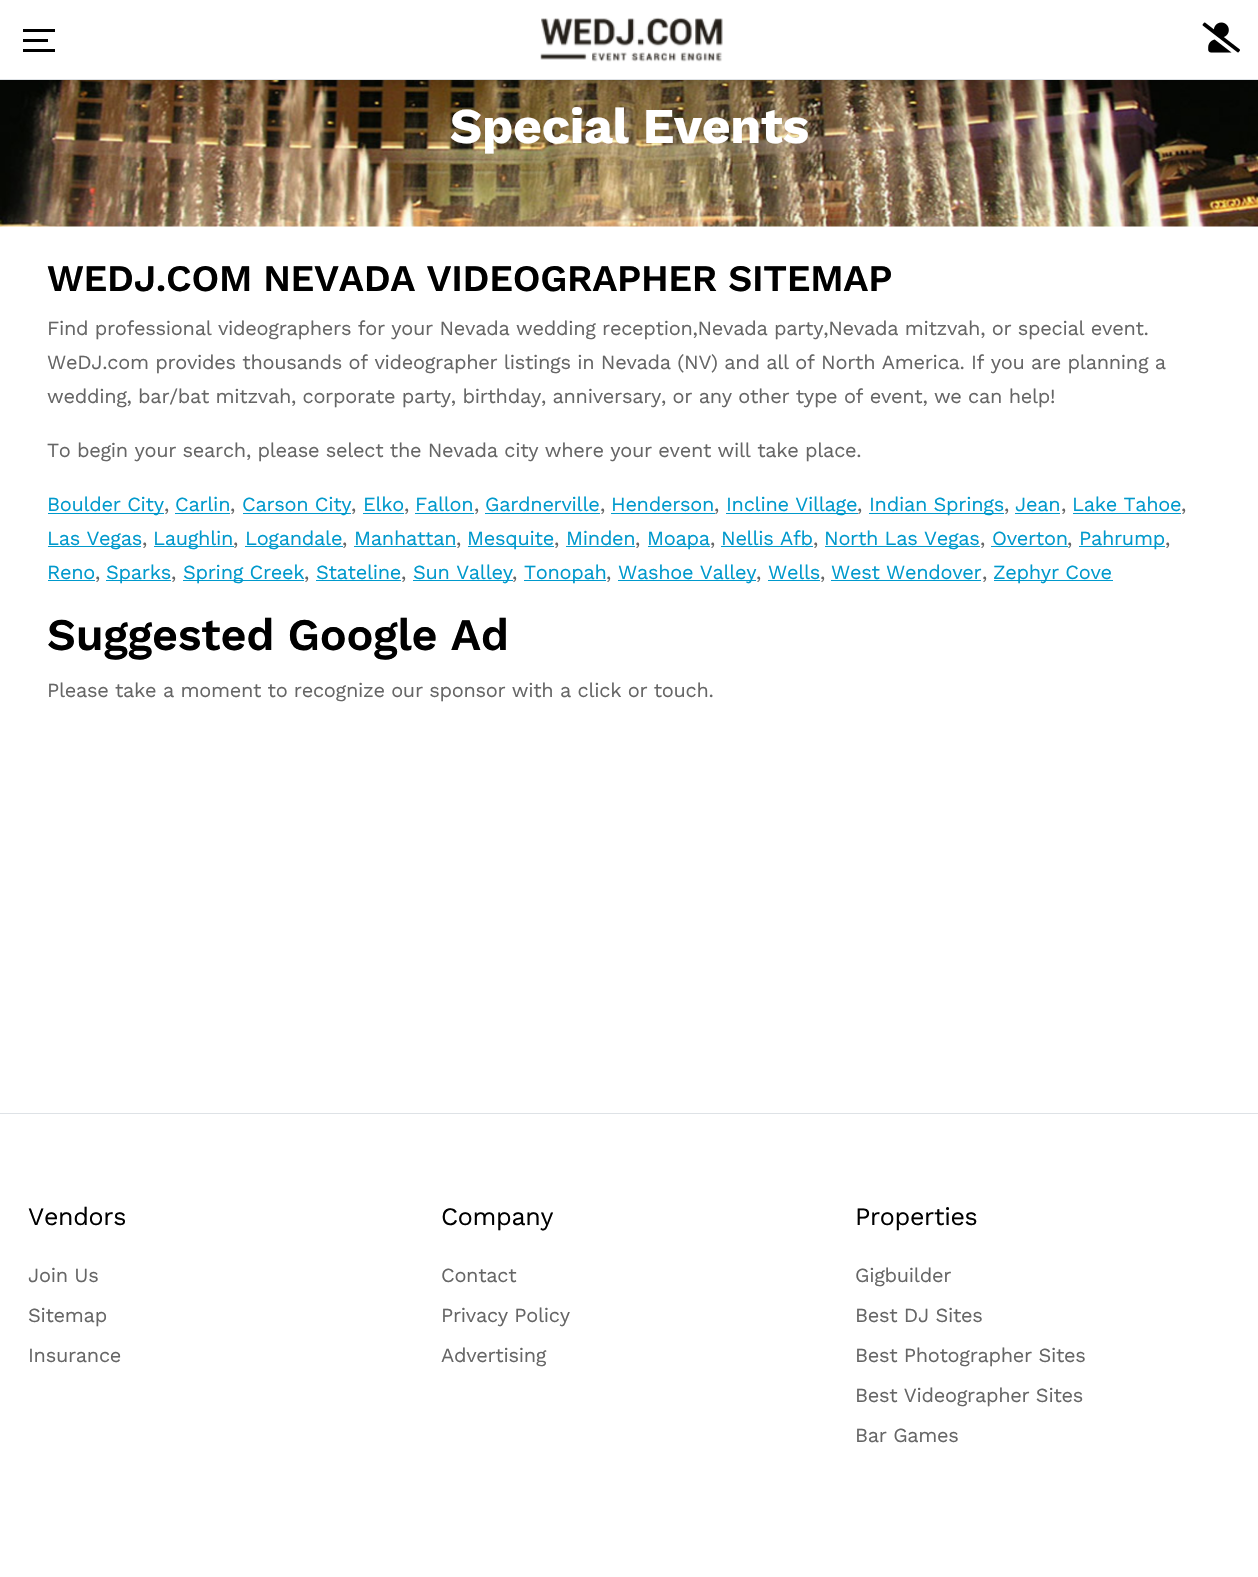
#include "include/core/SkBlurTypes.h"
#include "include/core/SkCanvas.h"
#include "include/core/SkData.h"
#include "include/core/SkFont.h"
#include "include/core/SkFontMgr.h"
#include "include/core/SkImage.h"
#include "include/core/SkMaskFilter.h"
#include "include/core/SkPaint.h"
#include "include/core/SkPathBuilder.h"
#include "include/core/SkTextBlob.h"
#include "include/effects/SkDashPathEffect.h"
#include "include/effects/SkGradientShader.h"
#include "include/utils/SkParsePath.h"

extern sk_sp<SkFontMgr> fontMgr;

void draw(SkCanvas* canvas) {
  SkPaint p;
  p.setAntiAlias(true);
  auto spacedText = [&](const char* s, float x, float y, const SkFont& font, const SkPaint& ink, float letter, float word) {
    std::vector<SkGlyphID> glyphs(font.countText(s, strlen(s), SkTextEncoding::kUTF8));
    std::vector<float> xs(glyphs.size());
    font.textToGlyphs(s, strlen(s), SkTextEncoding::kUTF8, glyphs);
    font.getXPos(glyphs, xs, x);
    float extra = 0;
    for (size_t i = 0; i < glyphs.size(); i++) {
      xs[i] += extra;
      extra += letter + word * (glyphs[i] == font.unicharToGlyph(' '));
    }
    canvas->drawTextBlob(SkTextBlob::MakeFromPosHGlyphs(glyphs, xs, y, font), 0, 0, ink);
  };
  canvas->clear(SK_ColorWHITE);
  canvas->drawImageRect(SkImages::DeferredFromEncodedData(SkData::MakeFromFileName("images/3.png")), SkRect::MakeLTRB(0, 80, 1258, 227), SkSamplingOptions());
  p.setColor(SkColorSetARGB(38, 0, 0, 0));
  p.setMaskFilter(SkMaskFilter::MakeBlur(kNormal_SkBlurStyle, 4.5f));
  canvas->drawRect(SkRect::MakeLTRB(0, 3, 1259, 83), p);
  p.setMaskFilter(nullptr);
  p.setColor(SK_ColorWHITE);
  canvas->drawRect(SkRect::MakeLTRB(0, 0, 1258, 79), p);
  p.setColor(SkColorSetRGB(222, 226, 230));
  canvas->drawRect(SkRect::MakeLTRB(0, 79, 1258, 80), p);
  p.setColor(SK_ColorBLACK);
  canvas->drawRect(SkRect::MakeLTRB(23, 39, 48, 42), p);
  canvas->drawRect(SkRect::MakeLTRB(23, 29, 55, 32), p);
  canvas->drawRect(SkRect::MakeLTRB(23, 49, 55, 52), p);
  canvas->drawImageRect(SkImages::DeferredFromEncodedData(SkData::MakeFromFileName("images/1.png")), SkRect::MakeLTRB(540, 17, 723, 62), SkSamplingOptions());
  canvas->drawImageRect(SkImages::DeferredFromEncodedData(SkData::MakeFromFileName("images/2.png")), SkRect::MakeLTRB(1202, 22, 1240, 53), SkSamplingOptions());
  p.setColor(SkColorSetRGB(0, 153, 204));
  canvas->drawRect(SkRect::MakeLTRB(48, 513, 164, 514), p);
  canvas->drawRect(SkRect::MakeLTRB(175, 513, 230, 514), p);
  canvas->drawRect(SkRect::MakeLTRB(243, 513, 351, 514), p);
  canvas->drawRect(SkRect::MakeLTRB(363, 513, 404, 514), p);
  canvas->drawRect(SkRect::MakeLTRB(415, 513, 474, 514), p);
  canvas->drawRect(SkRect::MakeLTRB(485, 513, 600, 514), p);
  canvas->drawRect(SkRect::MakeLTRB(611, 513, 715, 514), p);
  canvas->drawRect(SkRect::MakeLTRB(726, 513, 858, 514), p);
  canvas->drawRect(SkRect::MakeLTRB(869, 513, 1004, 514), p);
  canvas->drawRect(SkRect::MakeLTRB(1015, 513, 1060, 514), p);
  canvas->drawRect(SkRect::MakeLTRB(1073, 513, 1181, 514), p);
  canvas->drawRect(SkRect::MakeLTRB(48, 546, 141, 547), p);
  canvas->drawRect(SkRect::MakeLTRB(154, 546, 234, 547), p);
  canvas->drawRect(SkRect::MakeLTRB(245, 546, 343, 547), p);
  canvas->drawRect(SkRect::MakeLTRB(354, 546, 456, 547), p);
  canvas->drawRect(SkRect::MakeLTRB(468, 546, 554, 547), p);
  canvas->drawRect(SkRect::MakeLTRB(566, 546, 635, 547), p);
  canvas->drawRect(SkRect::MakeLTRB(648, 546, 710, 547), p);
  canvas->drawRect(SkRect::MakeLTRB(721, 546, 813, 547), p);
  canvas->drawRect(SkRect::MakeLTRB(825, 546, 980, 547), p);
  canvas->drawRect(SkRect::MakeLTRB(991, 546, 1068, 547), p);
  canvas->drawRect(SkRect::MakeLTRB(1079, 546, 1165, 547), p);
  canvas->drawRect(SkRect::MakeLTRB(48, 580, 95, 581), p);
  canvas->drawRect(SkRect::MakeLTRB(106, 580, 171, 581), p);
  canvas->drawRect(SkRect::MakeLTRB(183, 580, 304, 581), p);
  canvas->drawRect(SkRect::MakeLTRB(316, 580, 401, 581), p);
  canvas->drawRect(SkRect::MakeLTRB(413, 580, 513, 581), p);
  canvas->drawRect(SkRect::MakeLTRB(524, 580, 606, 581), p);
  canvas->drawRect(SkRect::MakeLTRB(618, 580, 756, 581), p);
  canvas->drawRect(SkRect::MakeLTRB(768, 580, 820, 581), p);
  canvas->drawRect(SkRect::MakeLTRB(831, 580, 981, 581), p);
  canvas->drawRect(SkRect::MakeLTRB(994, 580, 1113, 581), p);
  p.setColor(SkColorSetRGB(222, 226, 230));
  canvas->drawRect(SkRect::MakeLTRB(0, 1113, 1258, 1114), p);
  SkFont font1(fontMgr->matchFamilyStyle("Work Sans", SkFontStyle::Bold()), 50);
  font1.setSubpixel(true);
  p.setColor(SK_ColorWHITE);
  spacedText("Special Events", 450, 143, font1, p, -0.3f, 0);
  SkFont font2(fontMgr->matchFamilyStyle("Work Sans", SkFontStyle(600, SkFontStyle::kNormal_Width, SkFontStyle::kUpright_Slant)), 37.5f);
  font2.setSubpixel(true);
  p.setColor(SK_ColorBLACK);
  spacedText("WEDJ.COM NEVADA VIDEOGRAPHER SITEMAP", 47, 291, font2, p, -0.3f, 0);
  SkFont font3(fontMgr->matchFamilyStyle("Work Sans", SkFontStyle::Normal()), 20);
  font3.setSubpixel(true);
  p.setColor(SkColorSetRGB(102, 102, 102));
  spacedText("Find professional videographers for your Nevada wedding reception,Nevada party,Nevada mitzvah, or special event.", 47, 335, font3, p, -0.3f, 0);
  spacedText("WeDJ.com provides thousands of videographer listings in Nevada (NV) and all of North America. If you are planning a", 47, 369, font3, p, -0.3f, 0);
  spacedText("wedding, bar/bat mitzvah, corporate party, birthday, anniversary, or any other type of event, we can help!", 47, 403, font3, p, -0.3f, 0);
  spacedText("To begin your search, please select the Nevada city where your event will take place.", 47, 457, font3, p, -0.3f, 0);
  p.setColor(SkColorSetRGB(0, 153, 204));
  spacedText("Boulder City", 47, 511, font3, p, -0.3f, 0);
  p.setColor(SkColorSetRGB(102, 102, 102));
  spacedText(",", 164, 511, font3, p, -0.3f, 0);
  p.setColor(SkColorSetRGB(0, 153, 204));
  spacedText("Carlin", 175, 511, font3, p, -0.3f, 0);
  p.setColor(SkColorSetRGB(102, 102, 102));
  spacedText(",", 230, 511, font3, p, -0.3f, 0);
  p.setColor(SkColorSetRGB(0, 153, 204));
  spacedText("Carson City", 242, 511, font3, p, -0.3f, 0);
  p.setColor(SkColorSetRGB(102, 102, 102));
  spacedText(",", 351, 511, font3, p, -0.3f, 0);
  p.setColor(SkColorSetRGB(0, 153, 204));
  spacedText("Elko", 363, 511, font3, p, -0.3f, 0);
  p.setColor(SkColorSetRGB(102, 102, 102));
  spacedText(",", 404, 511, font3, p, -0.3f, 0);
  p.setColor(SkColorSetRGB(0, 153, 204));
  spacedText("Fallon", 415, 511, font3, p, -0.3f, 0);
  p.setColor(SkColorSetRGB(102, 102, 102));
  spacedText(",", 474, 511, font3, p, -0.3f, 0);
  p.setColor(SkColorSetRGB(0, 153, 204));
  spacedText("Gardnerville", 485, 511, font3, p, -0.3f, 0);
  p.setColor(SkColorSetRGB(102, 102, 102));
  spacedText(",", 600, 511, font3, p, -0.3f, 0);
  p.setColor(SkColorSetRGB(0, 153, 204));
  spacedText("Henderson", 611, 511, font3, p, -0.3f, 0);
  p.setColor(SkColorSetRGB(102, 102, 102));
  spacedText(",", 714, 511, font3, p, -0.3f, 0);
  p.setColor(SkColorSetRGB(0, 153, 204));
  spacedText("Incline Village", 726, 511, font3, p, -0.3f, 0);
  p.setColor(SkColorSetRGB(102, 102, 102));
  spacedText(",", 857, 511, font3, p, -0.3f, 0);
  p.setColor(SkColorSetRGB(0, 153, 204));
  spacedText("Indian Springs", 869, 511, font3, p, -0.3f, 0);
  p.setColor(SkColorSetRGB(102, 102, 102));
  spacedText(",", 1004, 511, font3, p, -0.3f, 0);
  p.setColor(SkColorSetRGB(0, 153, 204));
  spacedText("Jean", 1015, 511, font3, p, -0.3f, 0);
  p.setColor(SkColorSetRGB(102, 102, 102));
  spacedText(",", 1061, 511, font3, p, -0.3f, 0);
  p.setColor(SkColorSetRGB(0, 153, 204));
  spacedText("Lake Tahoe", 1072, 511, font3, p, -0.3f, 0);
  p.setColor(SkColorSetRGB(102, 102, 102));
  spacedText(",", 1181, 511, font3, p, -0.3f, 0);
  p.setColor(SkColorSetRGB(0, 153, 204));
  spacedText("Las Vegas", 47, 545, font3, p, -0.3f, 0);
  p.setColor(SkColorSetRGB(102, 102, 102));
  spacedText(",", 142, 545, font3, p, -0.3f, 0);
  p.setColor(SkColorSetRGB(0, 153, 204));
  spacedText("Laughlin", 153, 545, font3, p, -0.3f, 0);
  p.setColor(SkColorSetRGB(102, 102, 102));
  spacedText(",", 233, 545, font3, p, -0.3f, 0);
  p.setColor(SkColorSetRGB(0, 153, 204));
  spacedText("Logandale", 245, 545, font3, p, -0.3f, 0);
  p.setColor(SkColorSetRGB(102, 102, 102));
  spacedText(",", 342, 545, font3, p, -0.3f, 0);
  p.setColor(SkColorSetRGB(0, 153, 204));
  spacedText("Manhattan", 354, 545, font3, p, -0.3f, 0);
  p.setColor(SkColorSetRGB(102, 102, 102));
  spacedText(",", 456, 545, font3, p, -0.3f, 0);
  p.setColor(SkColorSetRGB(0, 153, 204));
  spacedText("Mesquite", 467, 545, font3, p, -0.3f, 0);
  p.setColor(SkColorSetRGB(102, 102, 102));
  spacedText(",", 554, 545, font3, p, -0.3f, 0);
  p.setColor(SkColorSetRGB(0, 153, 204));
  spacedText("Minden", 566, 545, font3, p, -0.3f, 0);
  p.setColor(SkColorSetRGB(102, 102, 102));
  spacedText(",", 635, 545, font3, p, -0.3f, 0);
  p.setColor(SkColorSetRGB(0, 153, 204));
  spacedText("Moapa", 647, 545, font3, p, -0.3f, 0);
  p.setColor(SkColorSetRGB(102, 102, 102));
  spacedText(",", 710, 545, font3, p, -0.3f, 0);
  p.setColor(SkColorSetRGB(0, 153, 204));
  spacedText("Nellis Afb", 721, 545, font3, p, -0.3f, 0);
  p.setColor(SkColorSetRGB(102, 102, 102));
  spacedText(",", 813, 545, font3, p, -0.3f, 0);
  p.setColor(SkColorSetRGB(0, 153, 204));
  spacedText("North Las Vegas", 824, 545, font3, p, -0.3f, 0);
  p.setColor(SkColorSetRGB(102, 102, 102));
  spacedText(",", 980, 545, font3, p, -0.3f, 0);
  p.setColor(SkColorSetRGB(0, 153, 204));
  spacedText("Overton", 992, 545, font3, p, -0.3f, 0);
  p.setColor(SkColorSetRGB(102, 102, 102));
  spacedText(",", 1067, 545, font3, p, -0.3f, 0);
  p.setColor(SkColorSetRGB(0, 153, 204));
  spacedText("Pahrump", 1079, 545, font3, p, -0.3f, 0);
  p.setColor(SkColorSetRGB(102, 102, 102));
  spacedText(",", 1165, 545, font3, p, -0.3f, 0);
  p.setColor(SkColorSetRGB(0, 153, 204));
  spacedText("Reno", 47, 579, font3, p, -0.3f, 0);
  p.setColor(SkColorSetRGB(102, 102, 102));
  spacedText(",", 95, 579, font3, p, -0.3f, 0);
  p.setColor(SkColorSetRGB(0, 153, 204));
  spacedText("Sparks", 106, 579, font3, p, -0.3f, 0);
  p.setColor(SkColorSetRGB(102, 102, 102));
  spacedText(",", 171, 579, font3, p, -0.3f, 0);
  p.setColor(SkColorSetRGB(0, 153, 204));
  spacedText("Spring Creek", 183, 579, font3, p, -0.3f, 0);
  p.setColor(SkColorSetRGB(102, 102, 102));
  spacedText(",", 304, 579, font3, p, -0.3f, 0);
  p.setColor(SkColorSetRGB(0, 153, 204));
  spacedText("Stateline", 316, 579, font3, p, -0.3f, 0);
  p.setColor(SkColorSetRGB(102, 102, 102));
  spacedText(",", 401, 579, font3, p, -0.3f, 0);
  p.setColor(SkColorSetRGB(0, 153, 204));
  spacedText("Sun Valley", 413, 579, font3, p, -0.3f, 0);
  p.setColor(SkColorSetRGB(102, 102, 102));
  spacedText(",", 512, 579, font3, p, -0.3f, 0);
  p.setColor(SkColorSetRGB(0, 153, 204));
  spacedText("Tonopah", 524, 579, font3, p, -0.3f, 0);
  p.setColor(SkColorSetRGB(102, 102, 102));
  spacedText(",", 606, 579, font3, p, -0.3f, 0);
  p.setColor(SkColorSetRGB(0, 153, 204));
  spacedText("Washoe Valley", 618, 579, font3, p, -0.3f, 0);
  p.setColor(SkColorSetRGB(102, 102, 102));
  spacedText(",", 756, 579, font3, p, -0.3f, 0);
  p.setColor(SkColorSetRGB(0, 153, 204));
  spacedText("Wells", 768, 579, font3, p, -0.3f, 0);
  p.setColor(SkColorSetRGB(102, 102, 102));
  spacedText(",", 820, 579, font3, p, -0.3f, 0);
  p.setColor(SkColorSetRGB(0, 153, 204));
  spacedText("West Wendover", 831, 579, font3, p, -0.3f, 0);
  p.setColor(SkColorSetRGB(102, 102, 102));
  spacedText(",", 982, 579, font3, p, -0.3f, 0);
  p.setColor(SkColorSetRGB(0, 153, 204));
  spacedText("Zephyr Cove", 993, 579, font3, p, -0.3f, 0);
  SkFont font4(fontMgr->matchFamilyStyle("Work Sans", SkFontStyle(600, SkFontStyle::kNormal_Width, SkFontStyle::kUpright_Slant)), 45);
  font4.setSubpixel(true);
  p.setColor(SK_ColorBLACK);
  spacedText("Suggested Google Ad", 47, 650, font4, p, -0.3f, 0);
  p.setColor(SkColorSetRGB(102, 102, 102));
  spacedText("Please take a moment to recognize our sponsor with a click or touch.", 47, 697, font3, p, -0.3f, 0);
  SkFont font5(fontMgr->matchFamilyStyle("Work Sans", SkFontStyle::Normal()), 25);
  font5.setSubpixel(true);
  p.setColor(SK_ColorBLACK);
  spacedText("Vendors", 28, 1225, font5, p, -0.3f, 0);
  p.setColor(SkColorSetRGB(102, 102, 102));
  spacedText("Join Us", 28, 1282, font3, p, -0.3f, 0);
  spacedText("Sitemap", 28, 1322, font3, p, -0.3f, 0);
  spacedText("Insurance", 28, 1362, font3, p, -0.3f, 0);
  p.setColor(SK_ColorBLACK);
  spacedText("Company", 441, 1225, font5, p, -0.3f, 0);
  p.setColor(SkColorSetRGB(102, 102, 102));
  spacedText("Contact", 441, 1282, font3, p, -0.3f, 0);
  spacedText("Privacy Policy", 441, 1322, font3, p, -0.3f, 0);
  spacedText("Advertising", 441, 1362, font3, p, -0.3f, 0);
  p.setColor(SK_ColorBLACK);
  spacedText("Properties", 855, 1225, font5, p, -0.3f, 0);
  p.setColor(SkColorSetRGB(102, 102, 102));
  spacedText("Gigbuilder", 855, 1282, font3, p, -0.3f, 0);
  spacedText("Best DJ Sites", 855, 1322, font3, p, -0.3f, 0);
  spacedText("Best Photographer Sites", 855, 1362, font3, p, -0.3f, 0);
  spacedText("Best Videographer Sites", 855, 1402, font3, p, -0.3f, 0);
  spacedText("Bar Games", 855, 1442, font3, p, -0.3f, 0);
}
